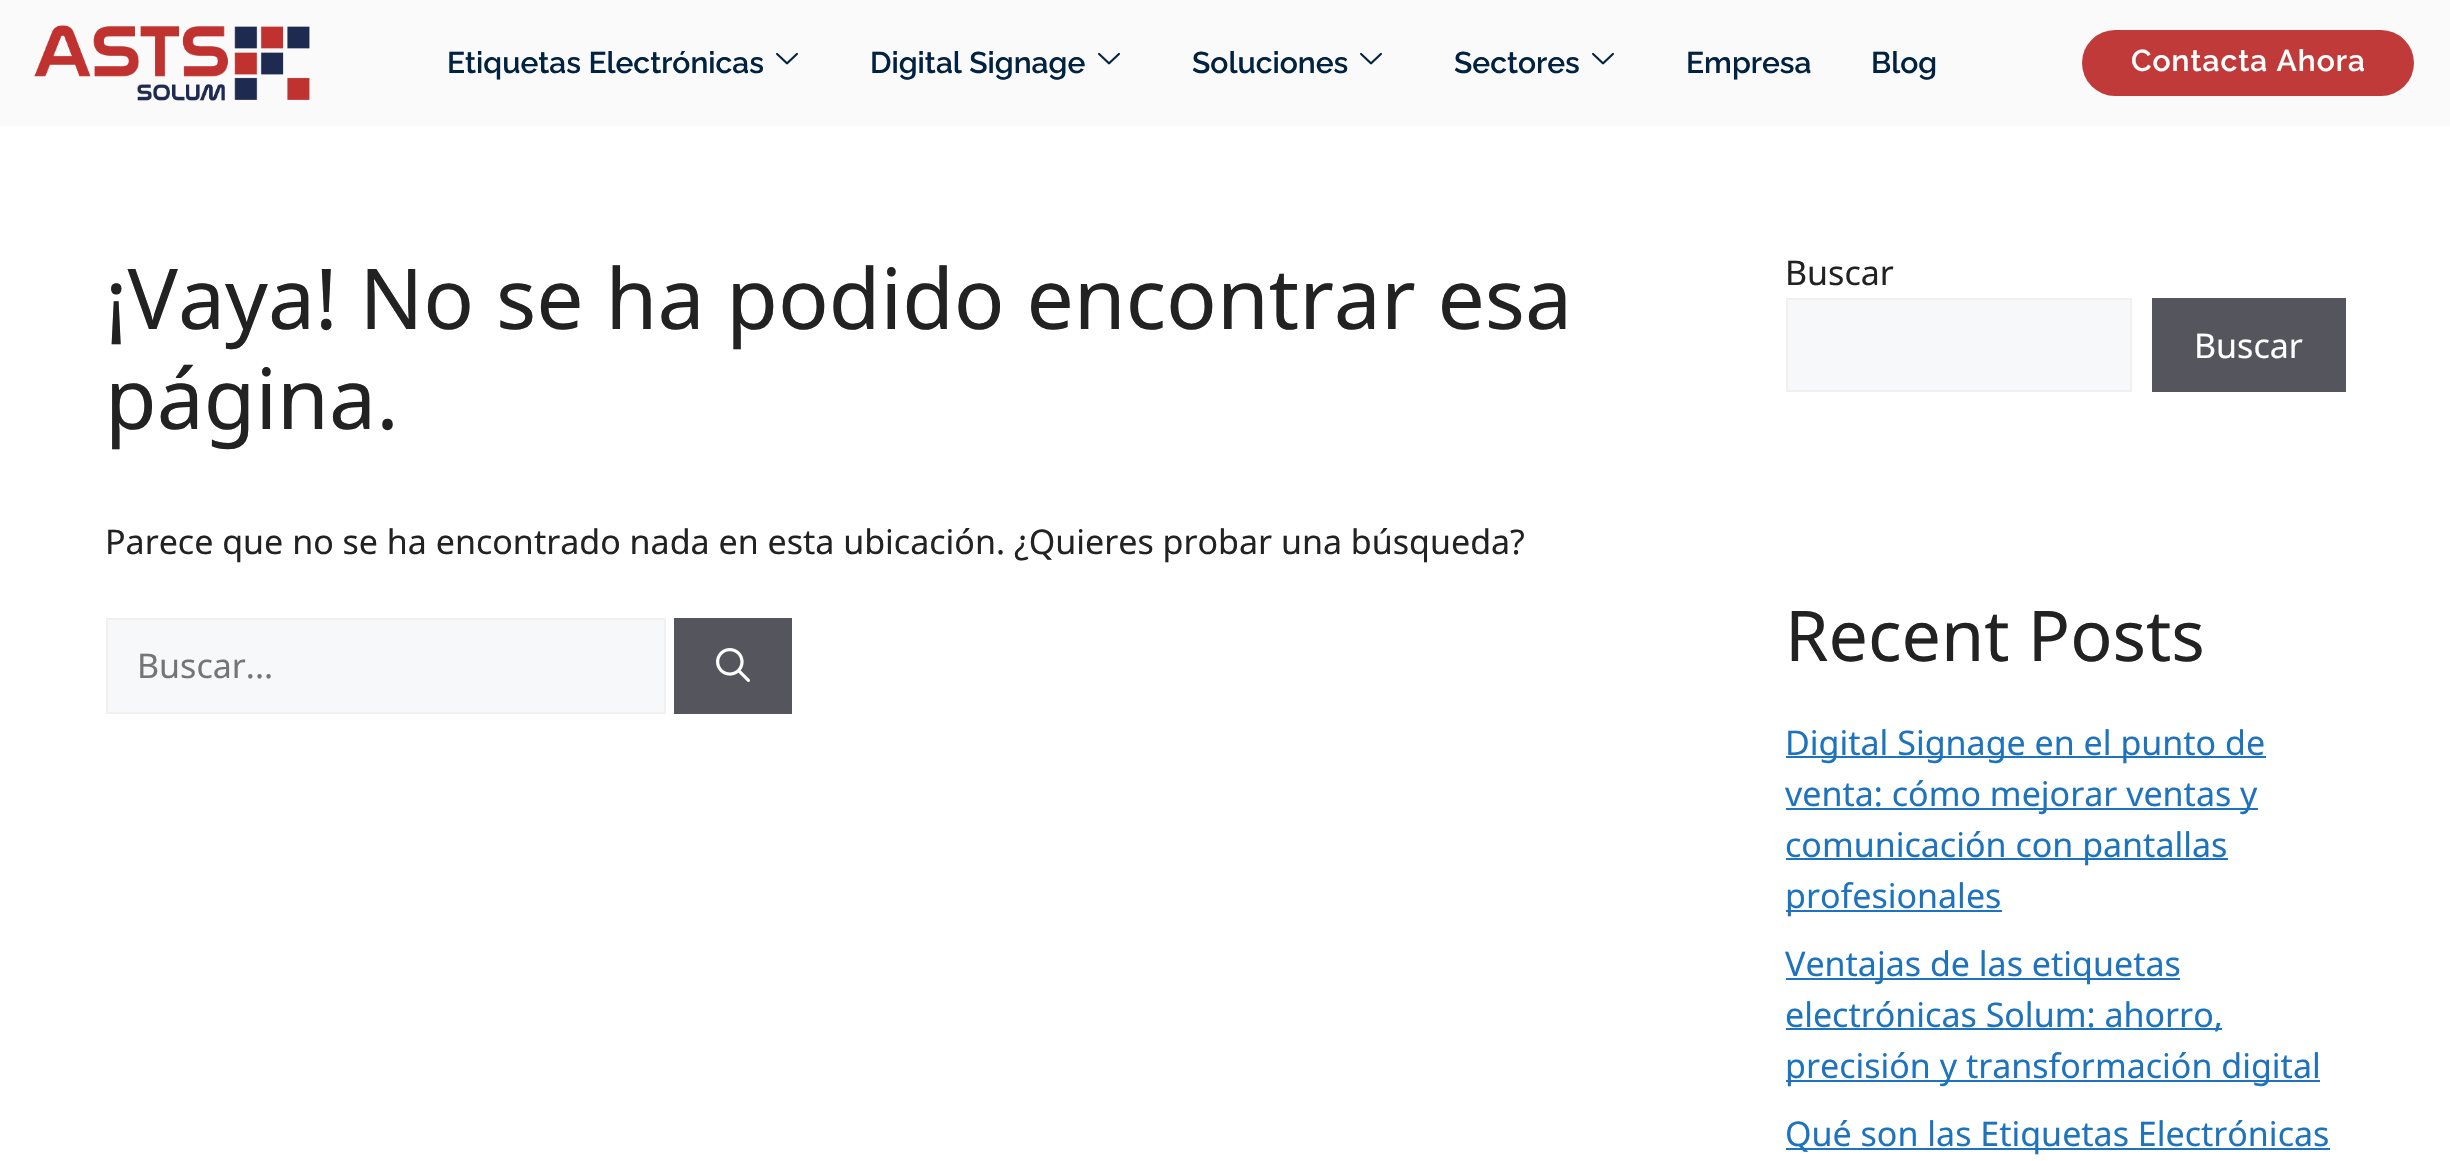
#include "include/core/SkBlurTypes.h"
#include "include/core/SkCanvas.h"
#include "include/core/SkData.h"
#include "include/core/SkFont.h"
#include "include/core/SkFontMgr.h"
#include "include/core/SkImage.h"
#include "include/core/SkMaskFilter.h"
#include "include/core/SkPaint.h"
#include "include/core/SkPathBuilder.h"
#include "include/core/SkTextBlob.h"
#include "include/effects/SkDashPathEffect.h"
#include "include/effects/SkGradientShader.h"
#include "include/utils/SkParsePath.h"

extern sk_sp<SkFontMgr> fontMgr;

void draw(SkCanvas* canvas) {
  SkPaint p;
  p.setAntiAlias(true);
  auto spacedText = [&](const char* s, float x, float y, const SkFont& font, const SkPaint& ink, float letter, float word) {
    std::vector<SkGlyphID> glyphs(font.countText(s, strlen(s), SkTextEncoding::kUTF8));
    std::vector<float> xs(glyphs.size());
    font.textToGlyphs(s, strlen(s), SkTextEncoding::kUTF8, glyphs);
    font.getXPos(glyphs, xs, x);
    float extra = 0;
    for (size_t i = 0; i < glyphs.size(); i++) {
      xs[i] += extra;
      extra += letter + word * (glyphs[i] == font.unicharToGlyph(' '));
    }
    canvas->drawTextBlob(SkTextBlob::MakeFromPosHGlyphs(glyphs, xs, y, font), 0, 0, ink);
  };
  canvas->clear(SK_ColorWHITE);
  p.setColor(SkColorSetRGB(250, 250, 250));
  canvas->drawRect(SkRect::MakeLTRB(0, 0, 2450, 126), p);
  canvas->drawImageRect(SkImages::DeferredFromEncodedData(SkData::MakeFromFileName("images/1.png")), SkRect::MakeLTRB(34, 25, 310, 101), SkSamplingOptions());
  canvas->drawImageRect(SkImages::DeferredFromEncodedData(SkData::MakeFromFileName("images/2.png")), SkRect::MakeLTRB(776, 52, 798, 65), SkSamplingOptions());
  canvas->drawImageRect(SkImages::DeferredFromEncodedData(SkData::MakeFromFileName("images/2.png")), SkRect::MakeLTRB(1098, 52, 1120, 65), SkSamplingOptions());
  canvas->drawImageRect(SkImages::DeferredFromEncodedData(SkData::MakeFromFileName("images/2.png")), SkRect::MakeLTRB(1360, 52, 1382, 65), SkSamplingOptions());
  canvas->drawImageRect(SkImages::DeferredFromEncodedData(SkData::MakeFromFileName("images/2.png")), SkRect::MakeLTRB(1592, 52, 1614, 65), SkSamplingOptions());
  p.setColor(SkColorSetRGB(191, 58, 57));
  canvas->drawRoundRect(SkRect::MakeLTRB(2082, 30, 2414, 96), 33, 33, p);
  p.setColor(SkColorSetRGB(247, 248, 249));
  canvas->drawRect(SkRect::MakeLTRB(107, 619, 665, 713), p);
  p.setStyle(SkPaint::kStroke_Style);
  p.setStrokeWidth(2);
  p.setColor(SkColorSetRGB(240, 240, 240));
  canvas->drawRect(SkRect::MakeLTRB(107, 619, 665, 713), p);
  p.setStyle(SkPaint::kFill_Style);
  p.setColor(SkColorSetRGB(85, 85, 94));
  canvas->drawRect(SkRect::MakeLTRB(674, 618, 792, 714), p);
  canvas->drawImageRect(SkImages::DeferredFromEncodedData(SkData::MakeFromFileName("images/3.png")), SkRect::MakeLTRB(716, 648, 750, 682), SkSamplingOptions());
  p.setColor(SkColorSetRGB(247, 248, 249));
  canvas->drawRect(SkRect::MakeLTRB(1787, 299, 2131, 391), p);
  p.setStyle(SkPaint::kStroke_Style);
  p.setColor(SkColorSetRGB(240, 240, 240));
  canvas->drawRect(SkRect::MakeLTRB(1787, 299, 2131, 391), p);
  p.setStyle(SkPaint::kFill_Style);
  p.setColor(SkColorSetRGB(85, 85, 94));
  canvas->drawRect(SkRect::MakeLTRB(2152, 298, 2346, 392), p);
  p.setColor(SkColorSetRGB(30, 115, 190));
  canvas->drawRect(SkRect::MakeLTRB(1786, 756, 2266, 758), p);
  canvas->drawRect(SkRect::MakeLTRB(1786, 808, 2258, 810), p);
  canvas->drawRect(SkRect::MakeLTRB(1786, 858, 2228, 860), p);
  canvas->drawRect(SkRect::MakeLTRB(1786, 910, 2002, 912), p);
  canvas->drawRect(SkRect::MakeLTRB(1786, 978, 2180, 980), p);
  canvas->drawRect(SkRect::MakeLTRB(1786, 1028, 2222, 1030), p);
  canvas->drawRect(SkRect::MakeLTRB(1786, 1080, 2320, 1082), p);
  canvas->drawRect(SkRect::MakeLTRB(1786, 1148, 2330, 1150), p);
  SkFont font1(fontMgr->matchFamilyStyle("Raleway", SkFontStyle(600, SkFontStyle::kNormal_Width, SkFontStyle::kUpright_Slant)), 30);
  font1.setSubpixel(true);
  p.setColor(SkColorSetRGB(1, 34, 64));
  canvas->drawString("Etiquetas Electrónicas", 447, 73, font1, p);
  canvas->drawString("Digital Signage", 870, 73, font1, p);
  canvas->drawString("Soluciones", 1192, 73, font1, p);
  canvas->drawString("Sectores", 1454, 73, font1, p);
  canvas->drawString("Empresa", 1686, 73, font1, p);
  canvas->drawString("Blog", 1871, 73, font1, p);
  p.setColor(SK_ColorWHITE);
  spacedText("Contacta Ahora", 2131, 71, font1, p, 1, 0);
  SkFont font2(fontMgr->matchFamilyStyle("Noto Sans", SkFontStyle::Normal()), 84);
  font2.setSubpixel(true);
  p.setColor(SkColorSetRGB(34, 34, 34));
  canvas->drawString("¡Vaya! No se ha podido encontrar esa", 105, 329, font2, p);
  canvas->drawString("página.", 105, 429, font2, p);
  SkFont font3(fontMgr->matchFamilyStyle("Noto Sans", SkFontStyle::Normal()), 34);
  font3.setSubpixel(true);
  canvas->drawString("Parece que no se ha encontrado nada en esta ubicación. ¿Quieres probar una búsqueda?", 105, 554, font3, p);
  p.setColor(SkColorSetRGB(117, 117, 117));
  canvas->drawString("Buscar...", 137, 678, font3, p);
  p.setColor(SkColorSetRGB(34, 34, 34));
  canvas->drawString("Buscar", 1785, 285, font3, p);
  p.setColor(SK_ColorWHITE);
  canvas->drawString("Buscar", 2194, 358, font3, p);
  SkFont font4(fontMgr->matchFamilyStyle("Noto Sans", SkFontStyle::Normal()), 70);
  font4.setSubpixel(true);
  p.setColor(SkColorSetRGB(34, 34, 34));
  canvas->drawString("Recent Posts", 1785, 661, font4, p);
  p.setColor(SkColorSetRGB(30, 115, 190));
  canvas->drawString("Digital Signage en el punto de", 1785, 755, font3, p);
  canvas->drawString("venta: cómo mejorar ventas y", 1785, 806, font3, p);
  canvas->drawString("comunicación con pantallas", 1785, 857, font3, p);
  canvas->drawString("profesionales", 1785, 908, font3, p);
  canvas->drawString("Ventajas de las etiquetas", 1785, 976, font3, p);
  canvas->drawString("electrónicas Solum: ahorro,", 1785, 1027, font3, p);
  canvas->drawString("precisión y transformación digital", 1785, 1078, font3, p);
  canvas->drawString("Qué son las Etiquetas Electrónicas", 1785, 1146, font3, p);
}
